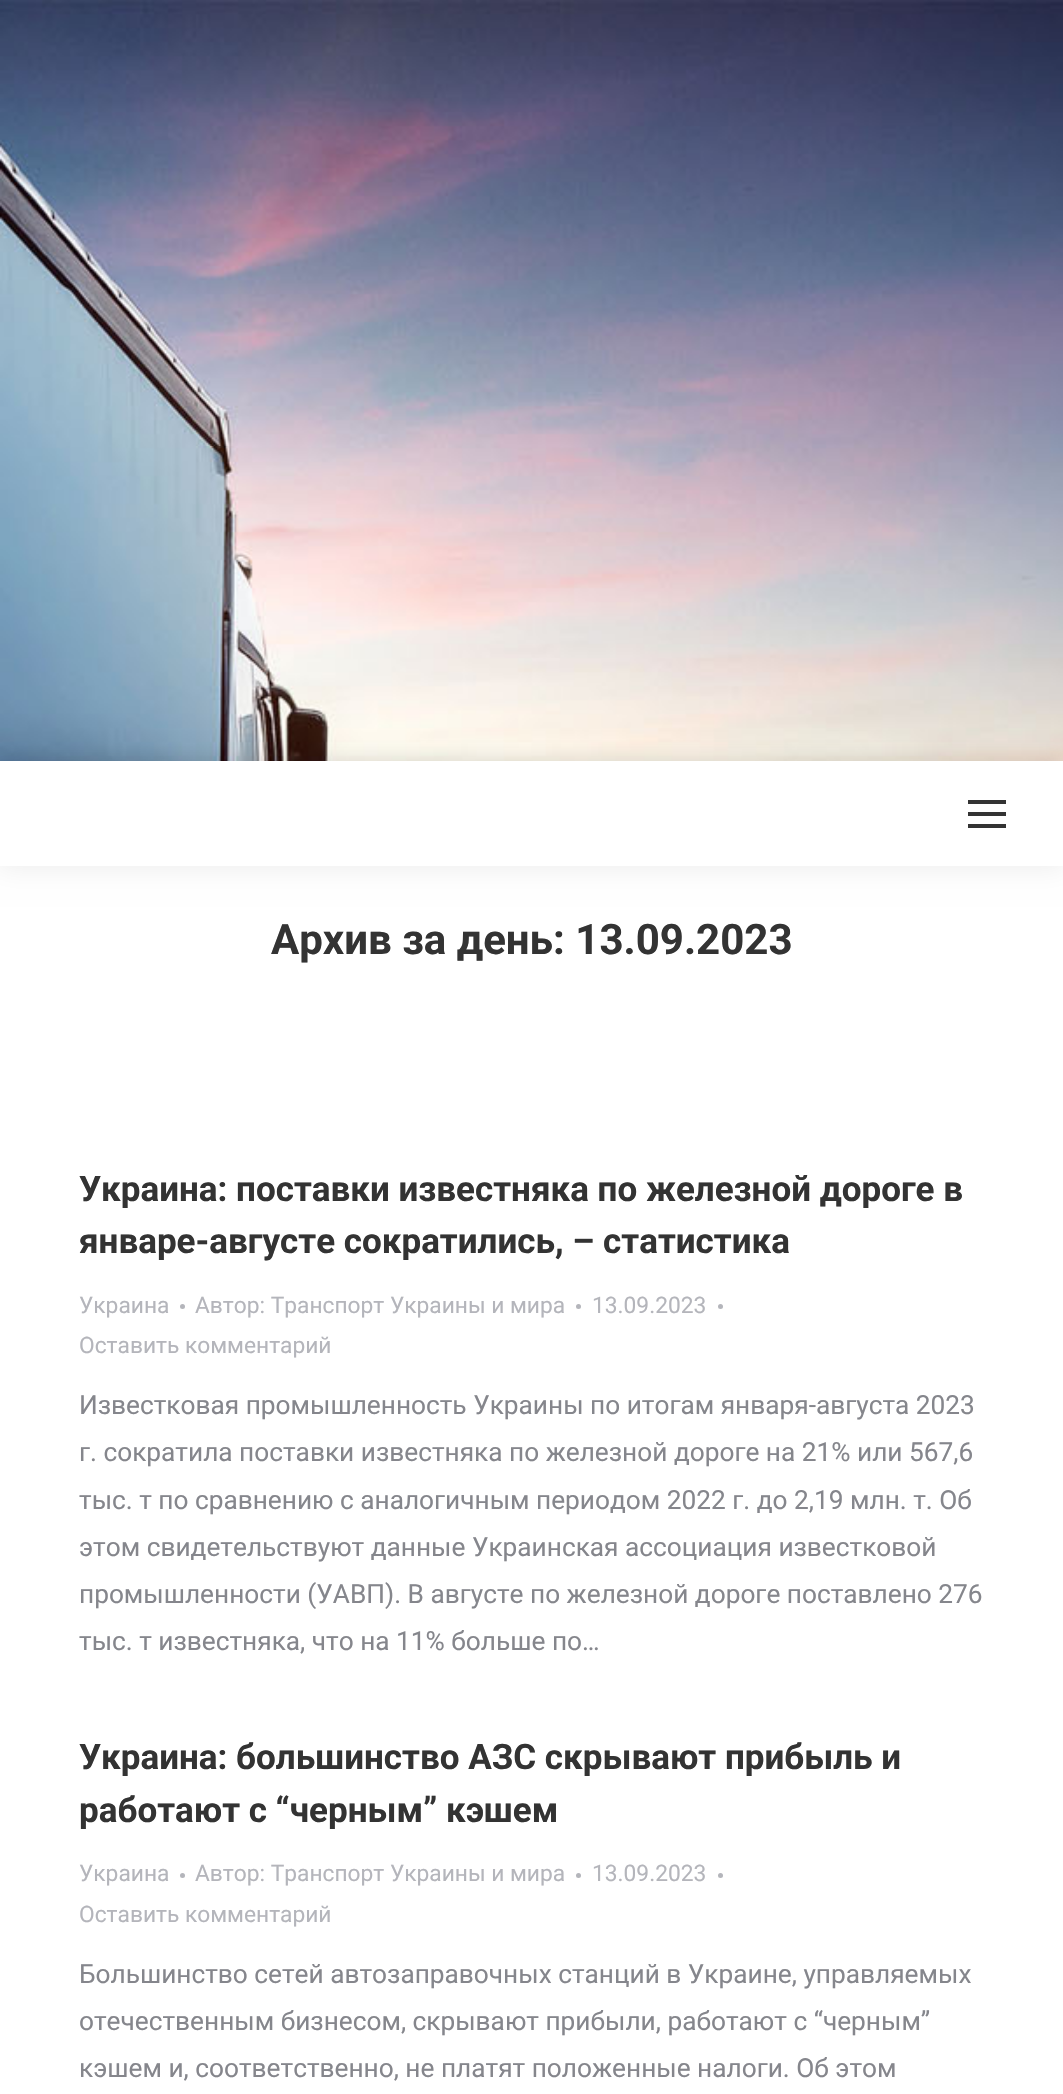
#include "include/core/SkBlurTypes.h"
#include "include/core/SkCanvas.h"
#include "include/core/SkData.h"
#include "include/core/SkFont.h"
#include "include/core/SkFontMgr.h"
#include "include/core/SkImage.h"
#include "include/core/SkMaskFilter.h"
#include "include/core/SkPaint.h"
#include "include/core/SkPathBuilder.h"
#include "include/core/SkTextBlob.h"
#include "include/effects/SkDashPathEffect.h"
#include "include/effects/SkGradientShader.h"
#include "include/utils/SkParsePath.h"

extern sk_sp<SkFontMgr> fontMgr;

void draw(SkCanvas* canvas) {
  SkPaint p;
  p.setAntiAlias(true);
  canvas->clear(SK_ColorWHITE);
  canvas->drawImageRect(SkImages::DeferredFromEncodedData(SkData::MakeFromFileName("images/1.png")), SkRect::MakeLTRB(0, 0, 1063, 761), SkSamplingOptions());
  p.setColor(SkColorSetARGB(38, 0, 0, 0));
  p.setMaskFilter(SkMaskFilter::MakeBlur(kNormal_SkBlurStyle, 10.5f));
  canvas->drawRect(SkRect::MakeLTRB(0, 761, 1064, 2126), p);
  p.setMaskFilter(nullptr);
  p.setColor(SK_ColorWHITE);
  canvas->drawRect(SkRect::MakeLTRB(0, 866, 1063, 2094), p);
  canvas->save();
  canvas->clipRect(SkRect::MakeLTRB(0, 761, 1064, 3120));
  p.setColor(SkColorSetARGB(18, 0, 0, 0));
  p.setMaskFilter(SkMaskFilter::MakeBlur(kNormal_SkBlurStyle, 13));
  canvas->drawRect(SkRect::MakeLTRB(-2, 760, 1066, 868), p);
  p.setMaskFilter(nullptr);
  canvas->restore();
  p.setColor(SK_ColorWHITE);
  canvas->drawRect(SkRect::MakeLTRB(0, 761, 1063, 866), p);
  p.setColor(SkColorSetRGB(51, 51, 51));
  canvas->drawRect(SkRect::MakeLTRB(968, 812, 1006, 816), p);
  canvas->drawRect(SkRect::MakeLTRB(968, 800, 1006, 804), p);
  canvas->drawRect(SkRect::MakeLTRB(968, 824, 1006, 828), p);
  p.setColor(SkColorSetRGB(180, 181, 187));
  canvas->drawCircle(182.5f, 1306.5f, 2.5f, p);
  canvas->drawCircle(578.5f, 1306.5f, 2.5f, p);
  canvas->drawCircle(720.5f, 1306.5f, 2.5f, p);
  canvas->drawCircle(182.5f, 1875.5f, 2.5f, p);
  canvas->drawCircle(578.5f, 1875.5f, 2.5f, p);
  canvas->drawCircle(720.5f, 1875.5f, 2.5f, p);
  SkFont font1(fontMgr->matchFamilyStyle("Roboto", SkFontStyle::Bold()), 42);
  font1.setSubpixel(true);
  p.setColor(SkColorSetRGB(51, 51, 51));
  canvas->drawString("Архив за день: 13.09.2023", 271, 954, font1, p);
  SkFont font2(fontMgr->matchFamilyStyle("Roboto", SkFontStyle::Bold()), 35);
  font2.setSubpixel(true);
  canvas->drawString("Украина: поставки известняка по железной дороге в", 79, 1201, font2, p);
  canvas->drawString("январе-августе сократились, – статистика", 79, 1253, font2, p);
  SkFont font3(fontMgr->matchFamilyStyle("Roboto", SkFontStyle::Normal()), 22.75f);
  font3.setSubpixel(true);
  p.setColor(SkColorSetRGB(180, 181, 187));
  canvas->drawString("Украина", 79, 1313, font3, p);
  canvas->drawString("Автор: Транспорт Украины и мира", 195, 1313, font3, p);
  canvas->drawString("13.09.2023", 592, 1313, font3, p);
  canvas->drawString("Оставить комментарий", 79, 1353, font3, p);
  SkFont font4(fontMgr->matchFamilyStyle("Roboto", SkFontStyle::Normal()), 26.25f);
  font4.setSubpixel(true);
  p.setColor(SkColorSetRGB(133, 134, 140));
  canvas->drawString("Известковая промышленность Украины по итогам января-августа 2023", 79, 1414, font4, p);
  canvas->drawString("г. сократила поставки известняка по железной дороге на 21% или 567,6", 79, 1461, font4, p);
  canvas->drawString("тыс. т по сравнению с аналогичным периодом 2022 г. до 2,19 млн. т. Об", 79, 1509, font4, p);
  canvas->drawString("этом свидетельствуют данные Украинская ассоциация известковой", 79, 1556, font4, p);
  canvas->drawString("промышленности (УАВП). В августе по железной дороге поставлено 276", 79, 1603, font4, p);
  canvas->drawString("тыс. т известняка, что на 11% больше по…", 79, 1650, font4, p);
  p.setColor(SkColorSetRGB(51, 51, 51));
  canvas->drawString("Украина: большинство АЗС скрывают прибыль и", 79, 1769, font2, p);
  canvas->drawString("работают с “черным” кэшем", 79, 1822, font2, p);
  p.setColor(SkColorSetRGB(180, 181, 187));
  canvas->drawString("Украина", 79, 1881, font3, p);
  canvas->drawString("Автор: Транспорт Украины и мира", 195, 1881, font3, p);
  canvas->drawString("13.09.2023", 592, 1881, font3, p);
  canvas->drawString("Оставить комментарий", 79, 1922, font3, p);
  p.setColor(SkColorSetRGB(133, 134, 140));
  canvas->drawString("Большинство сетей автозаправочных станций в Украине, управляемых", 79, 1983, font4, p);
  canvas->drawString("отечественным бизнесом, скрывают прибыли, работают с “черным”", 79, 2030, font4, p);
  canvas->drawString("кэшем и, соответственно, не платят положенные налоги. Об этом", 79, 2077, font4, p);
}
